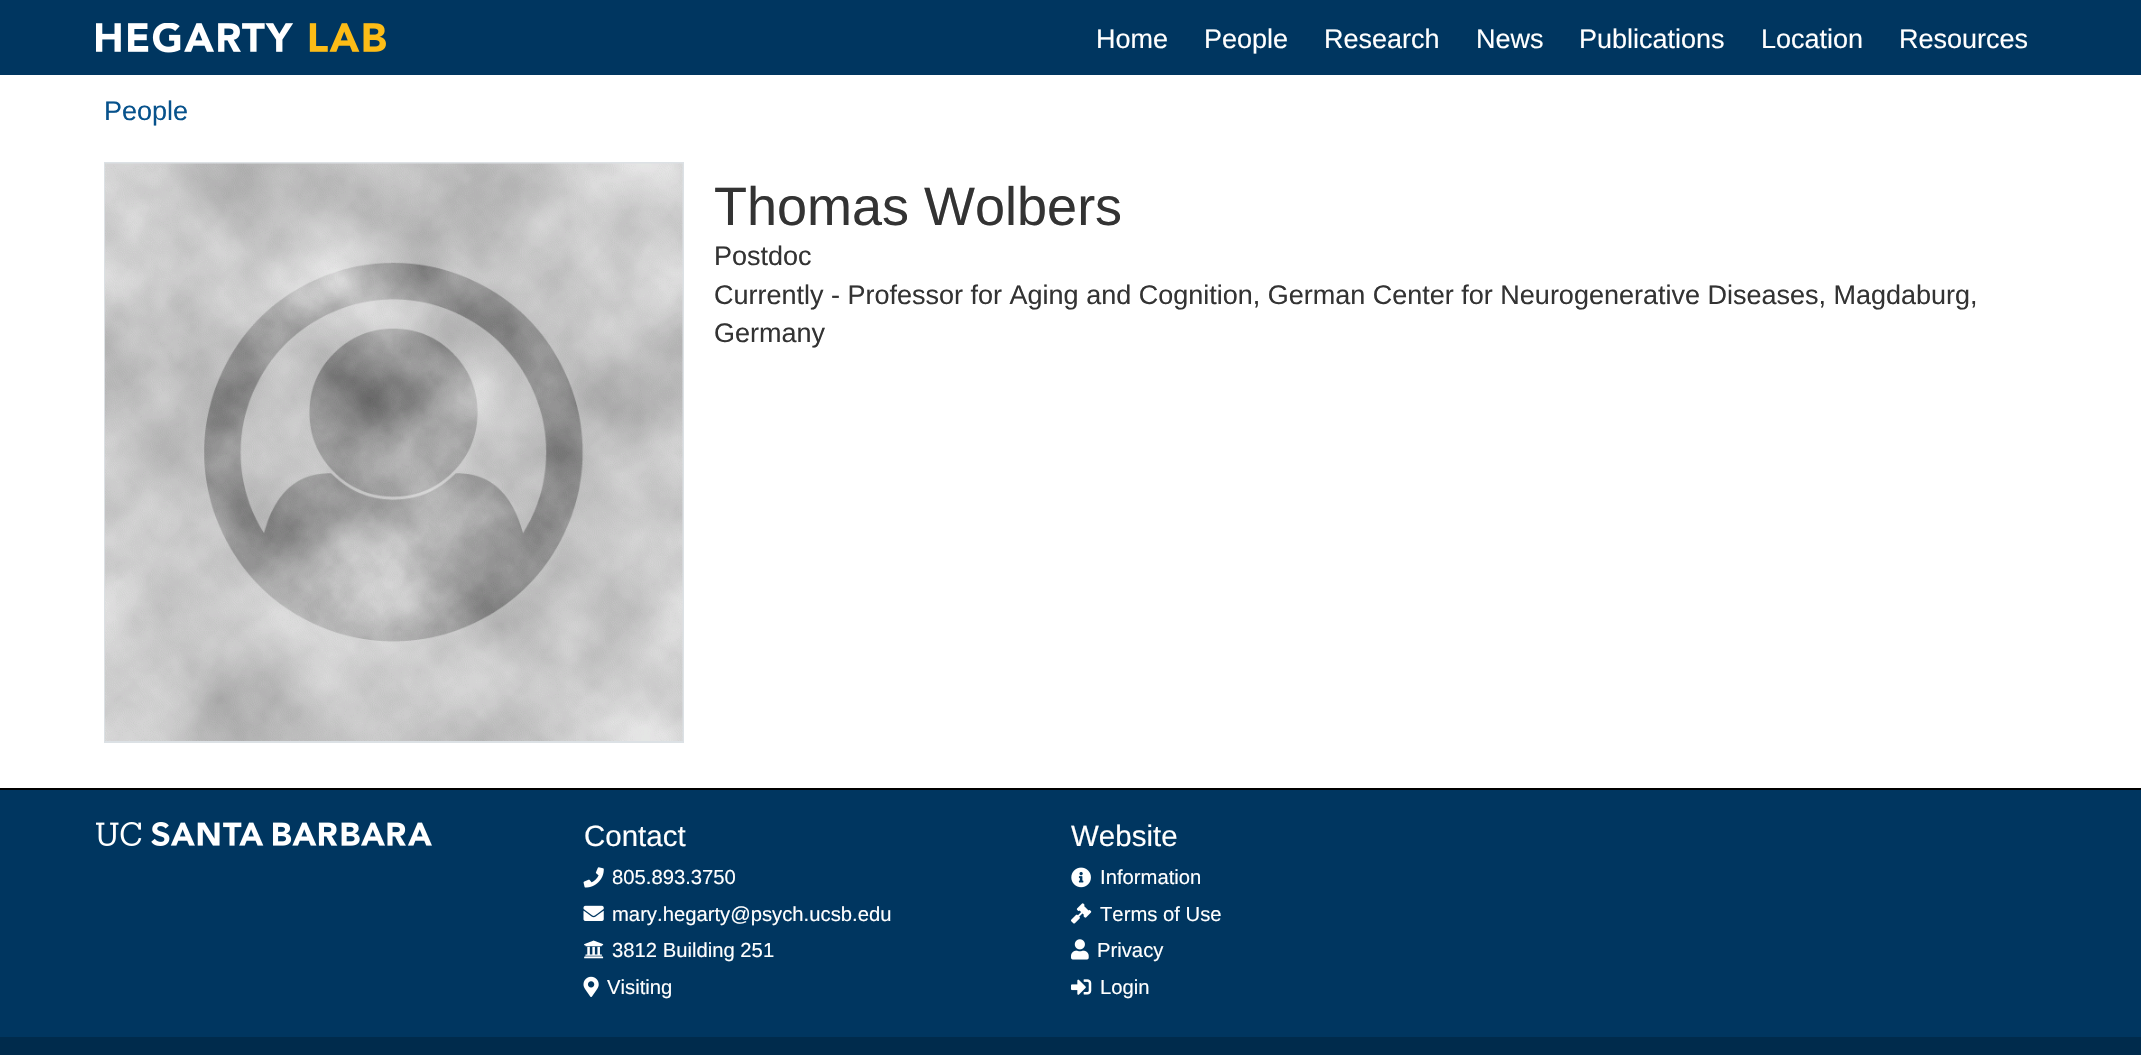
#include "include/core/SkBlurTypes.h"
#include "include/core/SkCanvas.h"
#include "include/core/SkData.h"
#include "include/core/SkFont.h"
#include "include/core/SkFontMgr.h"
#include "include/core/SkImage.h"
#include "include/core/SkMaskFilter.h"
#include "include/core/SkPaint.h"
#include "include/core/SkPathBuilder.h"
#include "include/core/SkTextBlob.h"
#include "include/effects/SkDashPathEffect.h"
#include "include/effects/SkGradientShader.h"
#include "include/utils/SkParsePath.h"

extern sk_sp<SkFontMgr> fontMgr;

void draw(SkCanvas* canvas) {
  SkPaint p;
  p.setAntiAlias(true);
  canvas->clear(SkColorSetRGB(0, 43, 76));
  p.setColor(SkColorSetRGB(0, 54, 96));
  canvas->drawRect(SkRect::MakeLTRB(0, 0, 2141, 75), p);
  canvas->drawImageRect(SkImages::DeferredFromEncodedData(SkData::MakeFromFileName("images/1.png")), SkRect::MakeLTRB(96, 23, 386, 53), SkSamplingOptions());
  p.setColor(SK_ColorWHITE);
  canvas->drawRect(SkRect::MakeLTRB(0, 75, 2141, 788), p);
  p.setStyle(SkPaint::kStroke_Style);
  p.setStrokeWidth(2);
  p.setColor(SkColorSetRGB(220, 225, 229));
  canvas->drawRect(SkRect::MakeLTRB(105, 163, 683, 742), p);
  canvas->drawImageRect(SkImages::DeferredFromEncodedData(SkData::MakeFromFileName("images/2.png")), SkRect::MakeLTRB(105, 163, 683, 741), SkSamplingOptions());
  p.setStyle(SkPaint::kFill_Style);
  p.setColor(SkColorSetRGB(0, 54, 96));
  canvas->drawRect(SkRect::MakeLTRB(0, 790, 2141, 1037), p);
  p.setColor(SK_ColorBLACK);
  canvas->drawRect(SkRect::MakeLTRB(0, 788, 2141, 790), p);
  canvas->drawImageRect(SkImages::DeferredFromEncodedData(SkData::MakeFromFileName("images/3.png")), SkRect::MakeLTRB(96, 822, 432, 846), SkSamplingOptions());
  canvas->drawImageRect(SkImages::DeferredFromEncodedData(SkData::MakeFromFileName("images/4.png")), SkRect::MakeLTRB(583, 867, 604, 888), SkSamplingOptions());
  canvas->drawImageRect(SkImages::DeferredFromEncodedData(SkData::MakeFromFileName("images/5.png")), SkRect::MakeLTRB(583, 905, 604, 921), SkSamplingOptions());
  canvas->drawImageRect(SkImages::DeferredFromEncodedData(SkData::MakeFromFileName("images/6.png")), SkRect::MakeLTRB(584, 940, 604, 959), SkSamplingOptions());
  canvas->drawImageRect(SkImages::DeferredFromEncodedData(SkData::MakeFromFileName("images/7.png")), SkRect::MakeLTRB(583, 976, 599, 997), SkSamplingOptions());
  canvas->drawImageRect(SkImages::DeferredFromEncodedData(SkData::MakeFromFileName("images/8.png")), SkRect::MakeLTRB(1071, 867, 1091, 888), SkSamplingOptions());
  canvas->drawImageRect(SkImages::DeferredFromEncodedData(SkData::MakeFromFileName("images/9.png")), SkRect::MakeLTRB(1071, 903, 1092, 924), SkSamplingOptions());
  canvas->drawImageRect(SkImages::DeferredFromEncodedData(SkData::MakeFromFileName("images/10.png")), SkRect::MakeLTRB(1071, 939, 1089, 960), SkSamplingOptions());
  canvas->drawImageRect(SkImages::DeferredFromEncodedData(SkData::MakeFromFileName("images/11.png")), SkRect::MakeLTRB(1071, 979, 1092, 995), SkSamplingOptions());
  SkFont font1(fontMgr->matchFamilyStyle("Liberation Sans", SkFontStyle::Normal()), 27);
  font1.setSubpixel(true);
  p.setColor(SK_ColorWHITE);
  canvas->drawString("Home", 1096, 48, font1, p);
  canvas->drawString("People", 1204, 48, font1, p);
  canvas->drawString("Research", 1324, 48, font1, p);
  canvas->drawString("News", 1476, 48, font1, p);
  canvas->drawString("Publications", 1579, 48, font1, p);
  canvas->drawString("Location", 1761, 48, font1, p);
  canvas->drawString("Resources", 1899, 48, font1, p);
  p.setColor(SkColorSetRGB(7, 82, 140));
  canvas->drawString("People", 104, 120, font1, p);
  SkFont font2(fontMgr->matchFamilyStyle("Liberation Sans", SkFontStyle::Normal()), 54);
  font2.setSubpixel(true);
  p.setColor(SkColorSetRGB(51, 51, 51));
  canvas->drawString("Thomas Wolbers", 714, 225, font2, p);
  canvas->drawString("Postdoc", 714, 265, font1, p);
  canvas->drawString("Currently - Professor for Aging and Cognition, German Center for Neurogenerative Diseases, Magdaburg,", 714, 304, font1, p);
  canvas->drawString("Germany", 714, 342, font1, p);
  SkFont font3(fontMgr->matchFamilyStyle("Liberation Sans", SkFontStyle::Normal()), 29.5f);
  font3.setSubpixel(true);
  p.setColor(SK_ColorWHITE);
  canvas->drawString("Contact", 584, 846, font3, p);
  SkFont font4(fontMgr->matchFamilyStyle("Liberation Sans", SkFontStyle::Normal()), 20.25f);
  font4.setSubpixel(true);
  canvas->drawString("805.893.3750", 612, 884, font4, p);
  canvas->drawString("mary.hegarty@psych.ucsb.edu", 612, 921, font4, p);
  canvas->drawString("3812 Building 251", 612, 957, font4, p);
  canvas->drawString("Visiting", 607, 994, font4, p);
  canvas->drawString("Website", 1071, 846, font3, p);
  canvas->drawString("Information", 1100, 884, font4, p);
  canvas->drawString("Terms of Use", 1100, 921, font4, p);
  canvas->drawString("Privacy", 1097, 957, font4, p);
  canvas->drawString("Login", 1100, 994, font4, p);
}
